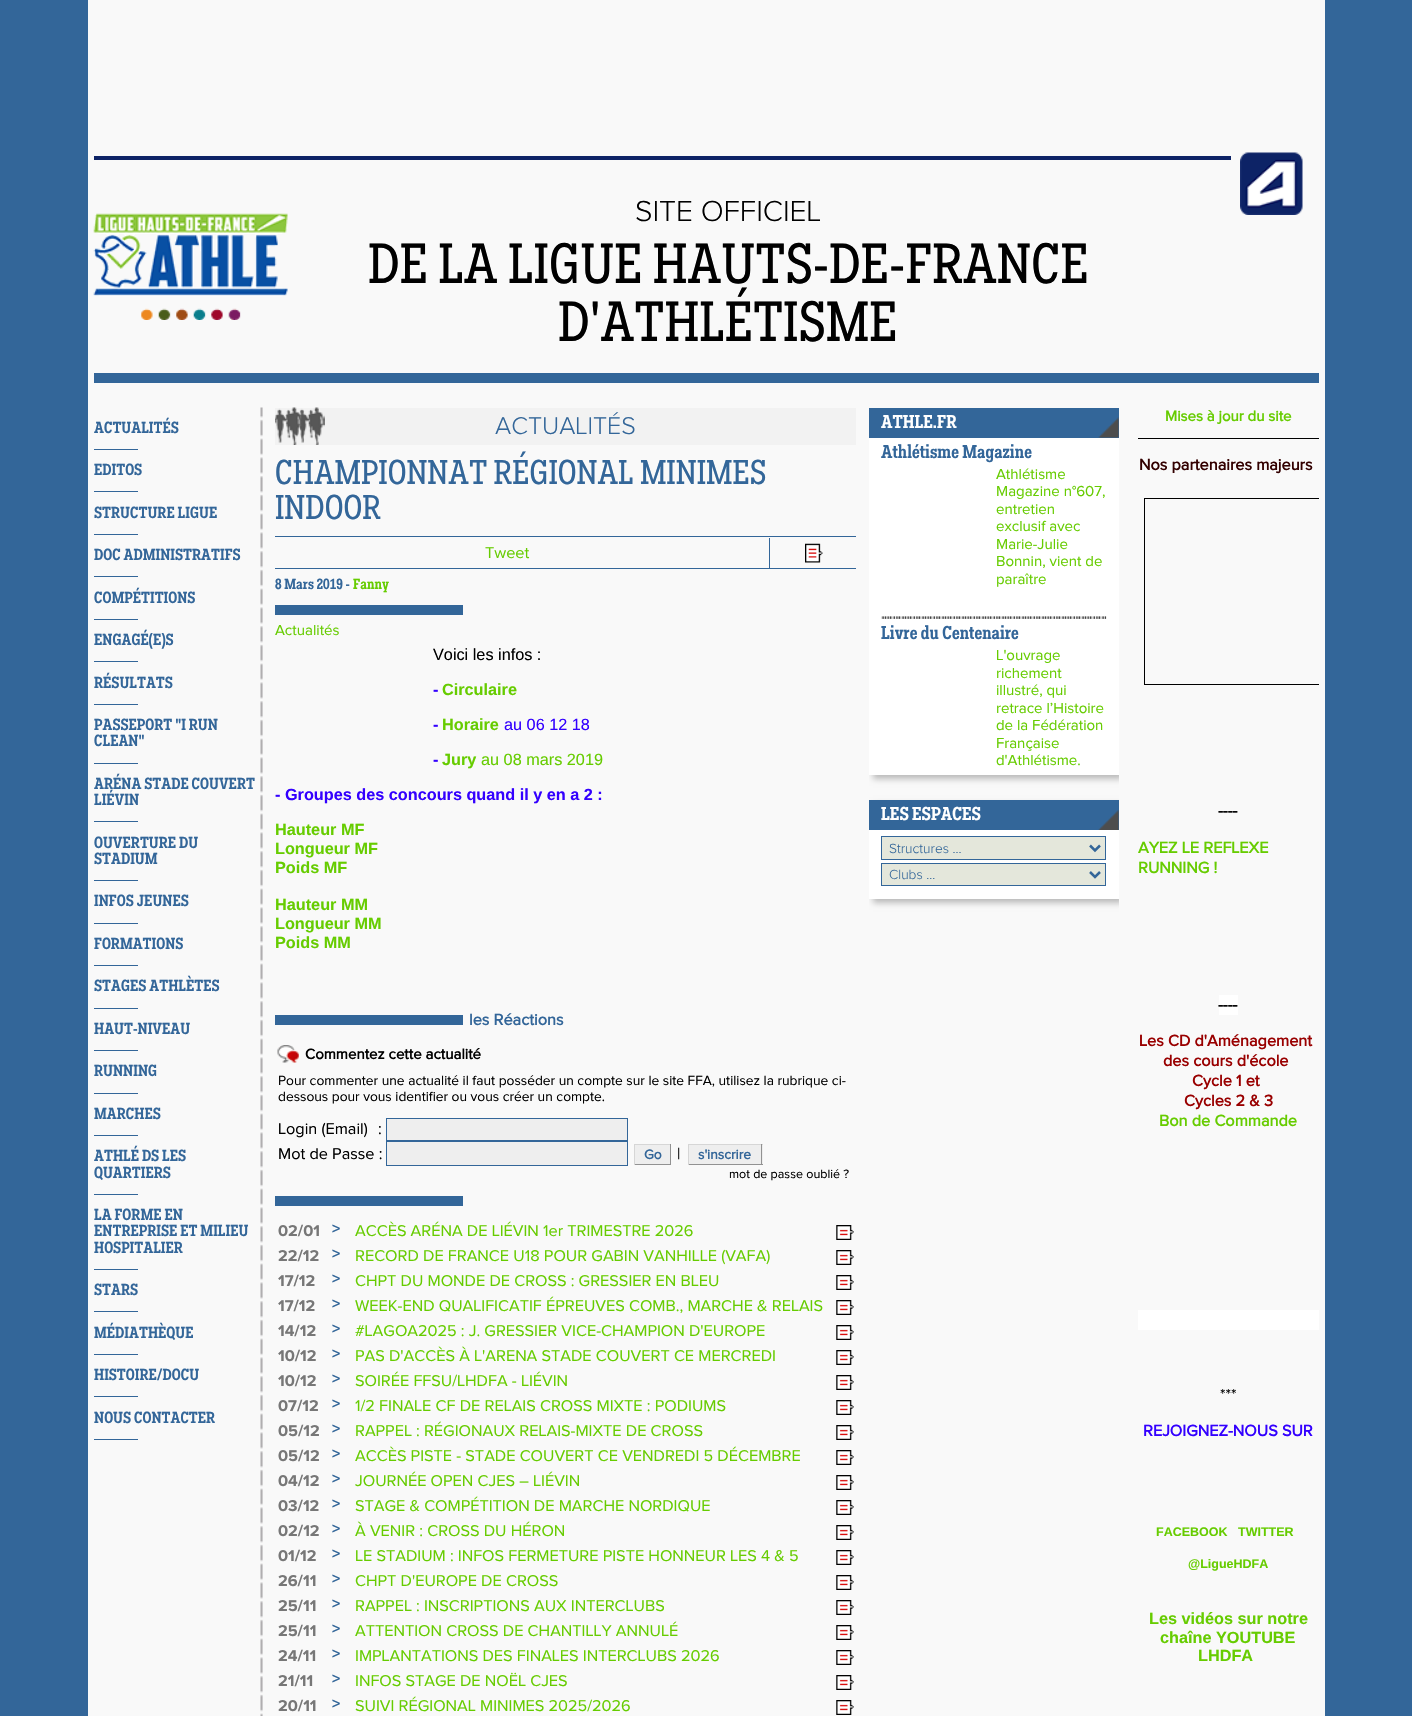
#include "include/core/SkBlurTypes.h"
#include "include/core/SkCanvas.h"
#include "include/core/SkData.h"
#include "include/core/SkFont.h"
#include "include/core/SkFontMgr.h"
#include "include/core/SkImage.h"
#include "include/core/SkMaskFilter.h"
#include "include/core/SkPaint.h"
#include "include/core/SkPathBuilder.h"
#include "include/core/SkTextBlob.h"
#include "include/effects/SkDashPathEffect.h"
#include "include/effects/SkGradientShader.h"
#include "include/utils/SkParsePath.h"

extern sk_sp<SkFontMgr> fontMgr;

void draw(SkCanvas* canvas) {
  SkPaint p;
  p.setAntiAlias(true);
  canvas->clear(SkColorSetRGB(51, 102, 153));
  p.setColor(SkColorSetRGB(249, 249, 249));
  canvas->drawRect(SkRect::MakeLTRB(88, 0, 1325, 1716), p);
  p.setColor(SkColorSetRGB(13, 35, 102));
  canvas->drawRect(SkRect::MakeLTRB(94, 156, 1231, 160), p);
  canvas->drawImageRect(SkImages::DeferredFromEncodedData(SkData::MakeFromFileName("images/1.png")), SkRect::MakeLTRB(1240, 152, 1303, 215), SkSamplingOptions());
  canvas->drawImageRect(SkImages::DeferredFromEncodedData(SkData::MakeFromFileName("images/2.png")), SkRect::MakeLTRB(93, 213, 288, 320), SkSamplingOptions());
  p.setColor(SkColorSetRGB(51, 102, 153));
  canvas->drawRect(SkRect::MakeLTRB(94, 373, 1319, 383), p);
  canvas->drawImageRect(SkImages::DeferredFromEncodedData(SkData::MakeFromFileName("images/3.png")), SkRect::MakeLTRB(260, 407, 263, 1716), SkSamplingOptions());
  canvas->drawRect(SkRect::MakeLTRB(94, 449, 138, 450), p);
  canvas->drawRect(SkRect::MakeLTRB(94, 491, 138, 492), p);
  canvas->drawRect(SkRect::MakeLTRB(94, 534, 138, 535), p);
  canvas->drawRect(SkRect::MakeLTRB(94, 576, 138, 577), p);
  canvas->drawRect(SkRect::MakeLTRB(94, 619, 138, 620), p);
  canvas->drawRect(SkRect::MakeLTRB(94, 661, 138, 662), p);
  canvas->drawRect(SkRect::MakeLTRB(94, 704, 138, 705), p);
  canvas->drawRect(SkRect::MakeLTRB(94, 763, 138, 764), p);
  canvas->drawRect(SkRect::MakeLTRB(94, 821, 138, 822), p);
  canvas->drawRect(SkRect::MakeLTRB(94, 880, 138, 881), p);
  canvas->drawRect(SkRect::MakeLTRB(94, 923, 138, 924), p);
  canvas->drawRect(SkRect::MakeLTRB(94, 965, 138, 966), p);
  canvas->drawRect(SkRect::MakeLTRB(94, 1008, 138, 1009), p);
  canvas->drawRect(SkRect::MakeLTRB(94, 1050, 138, 1051), p);
  canvas->drawRect(SkRect::MakeLTRB(94, 1093, 138, 1094), p);
  canvas->drawRect(SkRect::MakeLTRB(94, 1135, 138, 1136), p);
  canvas->drawRect(SkRect::MakeLTRB(94, 1194, 138, 1195), p);
  canvas->drawRect(SkRect::MakeLTRB(94, 1269, 138, 1270), p);
  canvas->drawRect(SkRect::MakeLTRB(94, 1311, 138, 1312), p);
  canvas->drawRect(SkRect::MakeLTRB(94, 1354, 138, 1355), p);
  canvas->drawRect(SkRect::MakeLTRB(94, 1396, 138, 1397), p);
  canvas->drawRect(SkRect::MakeLTRB(94, 1439, 138, 1440), p);
  p.setColor(SkColorSetRGB(242, 242, 242));
  canvas->drawRect(SkRect::MakeLTRB(275, 408, 856, 445), p);
  canvas->drawImageRect(SkImages::DeferredFromEncodedData(SkData::MakeFromFileName("images/4.png")), SkRect::MakeLTRB(275, 407, 325, 445), SkSamplingOptions());
  p.setColor(SkColorSetRGB(51, 102, 153));
  canvas->drawRect(SkRect::MakeLTRB(275, 536, 856, 537), p);
  canvas->drawRect(SkRect::MakeLTRB(769, 538, 770, 568), p);
  canvas->drawImageRect(SkImages::DeferredFromEncodedData(SkData::MakeFromFileName("images/5.png")), SkRect::MakeLTRB(805, 543, 823, 563), SkSamplingOptions());
  canvas->drawRect(SkRect::MakeLTRB(275, 568, 856, 569), p);
  canvas->drawRect(SkRect::MakeLTRB(275, 605, 463, 615), p);
  canvas->drawRect(SkRect::MakeLTRB(275, 1015, 463, 1025), p);
  canvas->drawImageRect(SkImages::DeferredFromEncodedData(SkData::MakeFromFileName("images/6.png")), SkRect::MakeLTRB(277, 1045, 299, 1063), SkSamplingOptions());
  p.setColor(SkColorSetRGB(238, 238, 238));
  canvas->drawRect(SkRect::MakeLTRB(386.5f, 1118.5f, 627.5f, 1140.5f), p);
  p.setStyle(SkPaint::kStroke_Style);
  p.setStrokeWidth(1);
  p.setColor(SkColorSetRGB(51, 102, 153));
  canvas->drawRect(SkRect::MakeLTRB(386.5f, 1118.5f, 627.5f, 1140.5f), p);
  p.setStyle(SkPaint::kFill_Style);
  p.setColor(SkColorSetRGB(238, 238, 238));
  canvas->drawRect(SkRect::MakeLTRB(386.5f, 1141.5f, 627.5f, 1165.5f), p);
  p.setStyle(SkPaint::kStroke_Style);
  p.setColor(SkColorSetRGB(51, 102, 153));
  canvas->drawRect(SkRect::MakeLTRB(386.5f, 1141.5f, 627.5f, 1165.5f), p);
  p.setStyle(SkPaint::kFill_Style);
  p.setColor(SkColorSetRGB(238, 238, 238));
  canvas->drawRect(SkRect::MakeLTRB(635, 1145, 670, 1164), p);
  p.setColor(SkColorSetRGB(214, 214, 214));
  canvas->drawRect(SkRect::MakeLTRB(634, 1144, 671, 1145), p);
  p.setColor(SkColorSetRGB(146, 146, 146));
  canvas->drawRect(SkRect::MakeLTRB(670, 1144, 671, 1165), p);
  canvas->drawRect(SkRect::MakeLTRB(634, 1164, 671, 1165), p);
  p.setColor(SkColorSetRGB(214, 214, 214));
  canvas->drawRect(SkRect::MakeLTRB(634, 1144, 635, 1165), p);
  p.setColor(SkColorSetRGB(238, 238, 238));
  canvas->drawRect(SkRect::MakeLTRB(689, 1145, 763, 1164), p);
  p.setColor(SkColorSetRGB(214, 214, 214));
  canvas->drawRect(SkRect::MakeLTRB(688, 1144, 763, 1145), p);
  p.setColor(SkColorSetRGB(146, 146, 146));
  canvas->drawRect(SkRect::MakeLTRB(761, 1144, 762, 1165), p);
  canvas->drawRect(SkRect::MakeLTRB(688, 1164, 763, 1165), p);
  p.setColor(SkColorSetRGB(214, 214, 214));
  canvas->drawRect(SkRect::MakeLTRB(688, 1144, 689, 1165), p);
  p.setColor(SkColorSetRGB(51, 102, 153));
  canvas->drawRect(SkRect::MakeLTRB(275, 1196, 463, 1206), p);
  canvas->drawImageRect(SkImages::DeferredFromEncodedData(SkData::MakeFromFileName("images/7.png")), SkRect::MakeLTRB(836, 1225, 854, 1240), SkSamplingOptions());
  canvas->drawImageRect(SkImages::DeferredFromEncodedData(SkData::MakeFromFileName("images/7.png")), SkRect::MakeLTRB(836, 1250, 854, 1265), SkSamplingOptions());
  canvas->drawImageRect(SkImages::DeferredFromEncodedData(SkData::MakeFromFileName("images/7.png")), SkRect::MakeLTRB(836, 1275, 854, 1290), SkSamplingOptions());
  canvas->drawImageRect(SkImages::DeferredFromEncodedData(SkData::MakeFromFileName("images/7.png")), SkRect::MakeLTRB(836, 1300, 854, 1315), SkSamplingOptions());
  canvas->drawImageRect(SkImages::DeferredFromEncodedData(SkData::MakeFromFileName("images/7.png")), SkRect::MakeLTRB(836, 1325, 854, 1340), SkSamplingOptions());
  canvas->drawImageRect(SkImages::DeferredFromEncodedData(SkData::MakeFromFileName("images/7.png")), SkRect::MakeLTRB(836, 1350, 854, 1365), SkSamplingOptions());
  canvas->drawImageRect(SkImages::DeferredFromEncodedData(SkData::MakeFromFileName("images/7.png")), SkRect::MakeLTRB(836, 1375, 854, 1390), SkSamplingOptions());
  canvas->drawImageRect(SkImages::DeferredFromEncodedData(SkData::MakeFromFileName("images/7.png")), SkRect::MakeLTRB(836, 1400, 854, 1415), SkSamplingOptions());
  canvas->drawImageRect(SkImages::DeferredFromEncodedData(SkData::MakeFromFileName("images/7.png")), SkRect::MakeLTRB(836, 1425, 854, 1440), SkSamplingOptions());
  canvas->drawImageRect(SkImages::DeferredFromEncodedData(SkData::MakeFromFileName("images/7.png")), SkRect::MakeLTRB(836, 1450, 854, 1465), SkSamplingOptions());
  canvas->drawImageRect(SkImages::DeferredFromEncodedData(SkData::MakeFromFileName("images/7.png")), SkRect::MakeLTRB(836, 1475, 854, 1490), SkSamplingOptions());
  canvas->drawImageRect(SkImages::DeferredFromEncodedData(SkData::MakeFromFileName("images/7.png")), SkRect::MakeLTRB(836, 1500, 854, 1515), SkSamplingOptions());
  canvas->drawImageRect(SkImages::DeferredFromEncodedData(SkData::MakeFromFileName("images/7.png")), SkRect::MakeLTRB(836, 1525, 854, 1540), SkSamplingOptions());
  canvas->drawImageRect(SkImages::DeferredFromEncodedData(SkData::MakeFromFileName("images/7.png")), SkRect::MakeLTRB(836, 1550, 854, 1565), SkSamplingOptions());
  canvas->drawImageRect(SkImages::DeferredFromEncodedData(SkData::MakeFromFileName("images/7.png")), SkRect::MakeLTRB(836, 1575, 854, 1590), SkSamplingOptions());
  canvas->drawImageRect(SkImages::DeferredFromEncodedData(SkData::MakeFromFileName("images/7.png")), SkRect::MakeLTRB(836, 1600, 854, 1615), SkSamplingOptions());
  canvas->drawImageRect(SkImages::DeferredFromEncodedData(SkData::MakeFromFileName("images/7.png")), SkRect::MakeLTRB(836, 1625, 854, 1640), SkSamplingOptions());
  canvas->drawImageRect(SkImages::DeferredFromEncodedData(SkData::MakeFromFileName("images/7.png")), SkRect::MakeLTRB(836, 1650, 854, 1665), SkSamplingOptions());
  canvas->drawImageRect(SkImages::DeferredFromEncodedData(SkData::MakeFromFileName("images/7.png")), SkRect::MakeLTRB(836, 1675, 854, 1690), SkSamplingOptions());
  canvas->drawImageRect(SkImages::DeferredFromEncodedData(SkData::MakeFromFileName("images/7.png")), SkRect::MakeLTRB(836, 1700, 854, 1715), SkSamplingOptions());
  canvas->save();
  canvas->clipRect(SkRect::MakeLTRB(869, 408, 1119, 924));
  p.setColor(SkColorSetARGB(64, 0, 0, 0));
  p.setMaskFilter(SkMaskFilter::MakeBlur(kNormal_SkBlurStyle, 3));
  canvas->drawRect(SkRect::MakeLTRB(873, 411, 1123, 779), p);
  p.setMaskFilter(nullptr);
  canvas->restore();
  p.setColor(SK_ColorWHITE);
  canvas->drawRect(SkRect::MakeLTRB(869, 438, 1119, 775), p);
  p.setColor(SkColorSetRGB(51, 102, 153));
  canvas->drawRect(SkRect::MakeLTRB(869, 408, 1119, 438), p);
  canvas->drawImageRect(SkImages::DeferredFromEncodedData(SkData::MakeFromFileName("images/8.png")), SkRect::MakeLTRB(1098, 417, 1119, 438), SkSamplingOptions());
  canvas->drawImageRect(SkImages::DeferredFromEncodedData(SkData::MakeFromFileName("images/9.png")), SkRect::MakeLTRB(881, 616, 1107, 619), SkSamplingOptions());
  canvas->save();
  canvas->clipRect(SkRect::MakeLTRB(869, 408, 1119, 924));
  p.setColor(SkColorSetARGB(64, 0, 0, 0));
  p.setMaskFilter(SkMaskFilter::MakeBlur(kNormal_SkBlurStyle, 3));
  canvas->drawRect(SkRect::MakeLTRB(873, 804, 1123, 903), p);
  p.setMaskFilter(nullptr);
  canvas->restore();
  p.setColor(SK_ColorWHITE);
  canvas->drawRect(SkRect::MakeLTRB(869, 830, 1119, 899), p);
  p.setColor(SkColorSetRGB(51, 102, 153));
  canvas->drawRect(SkRect::MakeLTRB(869, 800, 1119, 830), p);
  canvas->drawImageRect(SkImages::DeferredFromEncodedData(SkData::MakeFromFileName("images/10.png")), SkRect::MakeLTRB(1098, 810, 1119, 830), SkSamplingOptions());
  p.setColor(SkColorSetRGB(228, 231, 219));
  canvas->drawRect(SkRect::MakeLTRB(881.5f, 836.5f, 1105.5f, 859.5f), p);
  p.setStyle(SkPaint::kStroke_Style);
  p.setColor(SkColorSetRGB(51, 102, 153));
  canvas->drawRect(SkRect::MakeLTRB(881.5f, 836.5f, 1105.5f, 859.5f), p);
  p.setStrokeWidth(2.5f);
  canvas->drawPath(SkPathBuilder().moveTo(1090, 845.5f).lineTo(1095, 850.5f).lineTo(1100, 845.5f).detach(), p);
  p.setStyle(SkPaint::kFill_Style);
  p.setColor(SkColorSetRGB(228, 231, 219));
  canvas->drawRect(SkRect::MakeLTRB(881.5f, 863.5f, 1105.5f, 885.5f), p);
  p.setStyle(SkPaint::kStroke_Style);
  p.setStrokeWidth(1);
  p.setColor(SkColorSetRGB(51, 102, 153));
  canvas->drawRect(SkRect::MakeLTRB(881.5f, 863.5f, 1105.5f, 885.5f), p);
  p.setStrokeWidth(2.5f);
  canvas->drawPath(SkPathBuilder().moveTo(1090, 872).lineTo(1095, 877).lineTo(1100, 872).detach(), p);
  p.setStyle(SkPaint::kFill_Style);
  p.setColor(SK_ColorBLACK);
  canvas->drawRect(SkRect::MakeLTRB(1138, 438, 1319, 439), p);
  canvas->save();
  canvas->clipRect(SkRect::MakeLTRB(1138, 408, 1319, 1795));
  p.setStyle(SkPaint::kStroke_Style);
  p.setStrokeWidth(1);
  canvas->drawRect(SkRect::MakeLTRB(1144.5f, 498.5f, 1330.5f, 684.5f), p);
  canvas->restore();
  p.setStyle(SkPaint::kFill_Style);
  p.setColor(SK_ColorWHITE);
  canvas->drawRect(SkRect::MakeLTRB(1219, 995, 1238, 1015), p);
  canvas->drawRect(SkRect::MakeLTRB(1138, 1310, 1319, 1330), p);
  SkFont font1(fontMgr->matchFamilyStyle("Proxima Nova", SkFontStyle(300, SkFontStyle::kNormal_Width, SkFontStyle::kUpright_Slant)), 30);
  font1.setSubpixel(true);
  p.setColor(SK_ColorBLACK);
  canvas->drawString("SITE OFFICIEL", 635, 221, font1, p);
  SkFont font2(fontMgr->matchFamilyStyle("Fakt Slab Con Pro", SkFontStyle::Normal()), 57.5f);
  font2.setSubpixel(true);
  canvas->drawString("DE LA LIGUE HAUTS-DE-FRANCE", 368, 283, font2, p);
  canvas->drawString("D'ATHLÉTISME", 558, 341, font2, p);
  SkFont font3(fontMgr->matchFamilyStyle("Fakt Slab Con Pro", SkFontStyle(600, SkFontStyle::kNormal_Width, SkFontStyle::kUpright_Slant)), 16.25f);
  font3.setSubpixel(true);
  p.setColor(SkColorSetRGB(51, 102, 153));
  canvas->drawString("ACTUALITÉS", 94, 433, font3, p);
  canvas->drawString("EDITOS", 94, 475, font3, p);
  canvas->drawString("STRUCTURE LIGUE", 94, 518, font3, p);
  canvas->drawString("DOC ADMINISTRATIFS", 94, 560, font3, p);
  canvas->drawString("COMPÉTITIONS", 94, 603, font3, p);
  canvas->drawString("ENGAGÉ(E)S", 94, 645, font3, p);
  canvas->drawString("RÉSULTATS", 94, 688, font3, p);
  canvas->drawString("PASSEPORT \"I RUN", 94, 730, font3, p);
  canvas->drawString("CLEAN\"", 94, 746, font3, p);
  canvas->drawString("ARÉNA STADE COUVERT", 94, 789, font3, p);
  canvas->drawString("LIÉVIN", 94, 805, font3, p);
  canvas->drawString("OUVERTURE DU", 94, 848, font3, p);
  canvas->drawString("STADIUM", 94, 864, font3, p);
  canvas->drawString("INFOS JEUNES", 94, 906, font3, p);
  canvas->drawString("FORMATIONS", 94, 949, font3, p);
  canvas->drawString("STAGES ATHLÈTES", 94, 991, font3, p);
  canvas->drawString("HAUT-NIVEAU", 94, 1034, font3, p);
  canvas->drawString("RUNNING", 94, 1076, font3, p);
  canvas->drawString("MARCHES", 94, 1119, font3, p);
  canvas->drawString("ATHLÉ DS LES", 94, 1161, font3, p);
  canvas->drawString("QUARTIERS", 94, 1178, font3, p);
  canvas->drawString("LA FORME EN", 94, 1220, font3, p);
  canvas->drawString("ENTREPRISE ET MILIEU", 94, 1236, font3, p);
  canvas->drawString("HOSPITALIER", 94, 1253, font3, p);
  canvas->drawString("STARS", 94, 1295, font3, p);
  canvas->drawString("MÉDIATHÈQUE", 94, 1338, font3, p);
  canvas->drawString("HISTOIRE/DOCU", 94, 1380, font3, p);
  canvas->drawString("NOUS CONTACTER", 94, 1423, font3, p);
  SkFont font4(fontMgr->matchFamilyStyle("Proxima Nova", SkFontStyle(300, SkFontStyle::kNormal_Width, SkFontStyle::kUpright_Slant)), 25);
  font4.setSubpixel(true);
  canvas->drawString("ACTUALITÉS", 495, 434, font4, p);
  SkFont font5(fontMgr->matchFamilyStyle("Fakt Slab Con Pro", SkFontStyle::Normal()), 35);
  font5.setSubpixel(true);
  canvas->drawString("CHAMPIONNAT RÉGIONAL MINIMES", 275, 484, font5, p);
  canvas->drawString("INDOOR", 275, 519, font5, p);
  SkFont font6(fontMgr->matchFamilyStyle("Proxima Nova", SkFontStyle::Normal()), 16.25f);
  font6.setSubpixel(true);
  p.setColor(SkColorSetRGB(102, 204, 0));
  canvas->drawString("Tweet", 485, 558, font6, p);
  SkFont font7(fontMgr->matchFamilyStyle("Fakt Slab Con Pro", SkFontStyle(600, SkFontStyle::kNormal_Width, SkFontStyle::kUpright_Slant)), 15);
  font7.setSubpixel(true);
  p.setColor(SkColorSetRGB(51, 102, 153));
  canvas->drawString("8 Mars 2019 -", 275, 589, font7, p);
  p.setColor(SkColorSetRGB(102, 204, 0));
  canvas->drawString("Fanny", 353, 589, font7, p);
  SkFont font8(fontMgr->matchFamilyStyle("Proxima Nova", SkFontStyle::Normal()), 15);
  font8.setSubpixel(true);
  canvas->drawString("Actualités", 275, 635, font8, p);
  SkFont font9(fontMgr->matchFamilyStyle("Liberation Sans", SkFontStyle::Normal()), 16.25f);
  font9.setSubpixel(true);
  p.setColor(SK_ColorBLACK);
  canvas->drawString("Voici les infos :", 433, 660, font9, p);
  SkFont font10(fontMgr->matchFamilyStyle("Liberation Sans", SkFontStyle::Bold()), 16.25f);
  font10.setSubpixel(true);
  p.setColor(SkColorSetRGB(51, 0, 255));
  canvas->drawString("-", 433, 695, font10, p);
  p.setColor(SkColorSetRGB(102, 204, 0));
  canvas->drawString("Circulaire", 442, 695, font10, p);
  p.setColor(SkColorSetRGB(51, 0, 255));
  canvas->drawString("-", 433, 730, font10, p);
  p.setColor(SkColorSetRGB(102, 204, 0));
  canvas->drawString("Horaire", 442, 730, font10, p);
  p.setColor(SkColorSetRGB(51, 0, 255));
  canvas->drawString("au 06 12 18", 504, 730, font9, p);
  canvas->drawString("-", 433, 765, font10, p);
  p.setColor(SkColorSetRGB(102, 204, 0));
  canvas->drawString("Jury", 442, 765, font10, p);
  canvas->drawString("au 08 mars 2019", 481, 765, font9, p);
  p.setColor(SkColorSetRGB(51, 0, 255));
  canvas->drawString("- Groupes des concours quand il y en a 2 :", 275, 800, font10, p);
  p.setColor(SkColorSetRGB(102, 204, 0));
  canvas->drawString("Hauteur MF", 275, 835, font10, p);
  canvas->drawString("Longueur MF", 275, 854, font10, p);
  canvas->drawString("Poids MF", 275, 873, font10, p);
  canvas->drawString("Hauteur MM", 275, 910, font10, p);
  canvas->drawString("Longueur MM", 275, 929, font10, p);
  canvas->drawString("Poids MM", 275, 948, font10, p);
  SkFont font11(fontMgr->matchFamilyStyle("Proxima Nova", SkFontStyle::Bold()), 16.25f);
  font11.setSubpixel(true);
  p.setColor(SkColorSetRGB(51, 102, 153));
  canvas->drawString("les Réactions", 469, 1025, font11, p);
  SkFont font12(fontMgr->matchFamilyStyle("Proxima Nova", SkFontStyle::Bold()), 15);
  font12.setSubpixel(true);
  p.setColor(SK_ColorBLACK);
  canvas->drawString("Commentez cette actualité", 305, 1059, font12, p);
  SkFont font13(fontMgr->matchFamilyStyle("Proxima Nova", SkFontStyle::Normal()), 13.75f);
  font13.setSubpixel(true);
  canvas->drawString("Pour commenter une actualité il faut posséder un compte sur le site FFA, utilisez la rubrique ci-", 278, 1085, font13, p);
  canvas->drawString("dessous pour vous identifier ou vous créer un compte.", 278, 1101, font13, p);
  canvas->drawString("Login (Email)", 278, 1134, font6, p);
  canvas->drawString(":", 378, 1134, font6, p);
  canvas->drawString("Mot de Passe :", 278, 1159, font6, p);
  SkFont font14(fontMgr->matchFamilyStyle("Proxima Nova", SkFontStyle::Bold()), 13.75f);
  font14.setSubpixel(true);
  p.setColor(SkColorSetRGB(51, 102, 153));
  canvas->drawString("Go", 644, 1159, font14, p);
  p.setColor(SK_ColorBLACK);
  canvas->drawString("|", 677, 1159, font6, p);
  p.setColor(SkColorSetRGB(51, 102, 153));
  canvas->drawString("s'inscrire", 698, 1159, font14, p);
  SkFont font15(fontMgr->matchFamilyStyle("Proxima Nova", SkFontStyle::Normal()), 12.5f);
  font15.setSubpixel(true);
  p.setColor(SK_ColorBLACK);
  canvas->drawString("mot de passe oublié ?", 729, 1178, font15, p);
  SkFont font16(fontMgr->matchFamilyStyle("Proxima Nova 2", SkFontStyle::Bold()), 16.25f);
  font16.setSubpixel(true);
  p.setColor(SkColorSetRGB(119, 119, 119));
  canvas->drawString("02/01", 278, 1236, font16, p);
  p.setColor(SkColorSetRGB(51, 102, 153));
  canvas->drawString(">", 332, 1234, font16, p);
  p.setColor(SkColorSetRGB(102, 204, 0));
  canvas->drawString("ACCÈS ARÉNA DE LIÉVIN 1er TRIMESTRE 2026", 355, 1236, font6, p);
  p.setColor(SkColorSetRGB(119, 119, 119));
  canvas->drawString("22/12", 278, 1261, font16, p);
  p.setColor(SkColorSetRGB(51, 102, 153));
  canvas->drawString(">", 332, 1259, font16, p);
  p.setColor(SkColorSetRGB(102, 204, 0));
  canvas->drawString("RECORD DE FRANCE U18 POUR GABIN VANHILLE (VAFA)", 355, 1261, font6, p);
  p.setColor(SkColorSetRGB(119, 119, 119));
  canvas->drawString("17/12", 278, 1286, font16, p);
  p.setColor(SkColorSetRGB(51, 102, 153));
  canvas->drawString(">", 332, 1284, font16, p);
  p.setColor(SkColorSetRGB(102, 204, 0));
  canvas->drawString("CHPT DU MONDE DE CROSS : GRESSIER EN BLEU", 355, 1286, font6, p);
  p.setColor(SkColorSetRGB(119, 119, 119));
  canvas->drawString("17/12", 278, 1311, font16, p);
  p.setColor(SkColorSetRGB(51, 102, 153));
  canvas->drawString(">", 332, 1309, font16, p);
  p.setColor(SkColorSetRGB(102, 204, 0));
  canvas->drawString("WEEK-END QUALIFICATIF ÉPREUVES COMB., MARCHE & RELAIS", 355, 1311, font6, p);
  p.setColor(SkColorSetRGB(119, 119, 119));
  canvas->drawString("14/12", 278, 1336, font16, p);
  p.setColor(SkColorSetRGB(51, 102, 153));
  canvas->drawString(">", 332, 1334, font16, p);
  p.setColor(SkColorSetRGB(102, 204, 0));
  canvas->drawString("#LAGOA2025 : J. GRESSIER VICE-CHAMPION D'EUROPE", 355, 1336, font6, p);
  p.setColor(SkColorSetRGB(119, 119, 119));
  canvas->drawString("10/12", 278, 1361, font16, p);
  p.setColor(SkColorSetRGB(51, 102, 153));
  canvas->drawString(">", 332, 1359, font16, p);
  p.setColor(SkColorSetRGB(102, 204, 0));
  canvas->drawString("PAS D'ACCÈS À L'ARENA STADE COUVERT CE MERCREDI", 355, 1361, font6, p);
  p.setColor(SkColorSetRGB(119, 119, 119));
  canvas->drawString("10/12", 278, 1386, font16, p);
  p.setColor(SkColorSetRGB(51, 102, 153));
  canvas->drawString(">", 332, 1384, font16, p);
  p.setColor(SkColorSetRGB(102, 204, 0));
  canvas->drawString("SOIRÉE FFSU/LHDFA - LIÉVIN", 355, 1386, font6, p);
  p.setColor(SkColorSetRGB(119, 119, 119));
  canvas->drawString("07/12", 278, 1411, font16, p);
  p.setColor(SkColorSetRGB(51, 102, 153));
  canvas->drawString(">", 332, 1409, font16, p);
  p.setColor(SkColorSetRGB(102, 204, 0));
  canvas->drawString("1/2 FINALE CF DE RELAIS CROSS MIXTE : PODIUMS", 355, 1411, font6, p);
  p.setColor(SkColorSetRGB(119, 119, 119));
  canvas->drawString("05/12", 278, 1436, font16, p);
  p.setColor(SkColorSetRGB(51, 102, 153));
  canvas->drawString(">", 332, 1434, font16, p);
  p.setColor(SkColorSetRGB(102, 204, 0));
  canvas->drawString("RAPPEL : RÉGIONAUX RELAIS-MIXTE DE CROSS", 355, 1436, font6, p);
  p.setColor(SkColorSetRGB(119, 119, 119));
  canvas->drawString("05/12", 278, 1461, font16, p);
  p.setColor(SkColorSetRGB(51, 102, 153));
  canvas->drawString(">", 332, 1459, font16, p);
  p.setColor(SkColorSetRGB(102, 204, 0));
  canvas->drawString("ACCÈS PISTE - STADE COUVERT CE VENDREDI 5 DÉCEMBRE", 355, 1461, font6, p);
  p.setColor(SkColorSetRGB(119, 119, 119));
  canvas->drawString("04/12", 278, 1486, font16, p);
  p.setColor(SkColorSetRGB(51, 102, 153));
  canvas->drawString(">", 332, 1484, font16, p);
  p.setColor(SkColorSetRGB(102, 204, 0));
  canvas->drawString("JOURNÉE OPEN CJES – LIÉVIN", 355, 1486, font6, p);
  p.setColor(SkColorSetRGB(119, 119, 119));
  canvas->drawString("03/12", 278, 1511, font16, p);
  p.setColor(SkColorSetRGB(51, 102, 153));
  canvas->drawString(">", 332, 1509, font16, p);
  p.setColor(SkColorSetRGB(102, 204, 0));
  canvas->drawString("STAGE & COMPÉTITION DE MARCHE NORDIQUE", 355, 1511, font6, p);
  p.setColor(SkColorSetRGB(119, 119, 119));
  canvas->drawString("02/12", 278, 1536, font16, p);
  p.setColor(SkColorSetRGB(51, 102, 153));
  canvas->drawString(">", 332, 1534, font16, p);
  p.setColor(SkColorSetRGB(102, 204, 0));
  canvas->drawString("À VENIR : CROSS DU HÉRON", 355, 1536, font6, p);
  p.setColor(SkColorSetRGB(119, 119, 119));
  canvas->drawString("01/12", 278, 1561, font16, p);
  p.setColor(SkColorSetRGB(51, 102, 153));
  canvas->drawString(">", 332, 1559, font16, p);
  p.setColor(SkColorSetRGB(102, 204, 0));
  canvas->drawString("LE STADIUM : INFOS FERMETURE PISTE HONNEUR LES 4 & 5", 355, 1561, font6, p);
  p.setColor(SkColorSetRGB(119, 119, 119));
  canvas->drawString("26/11", 278, 1586, font16, p);
  p.setColor(SkColorSetRGB(51, 102, 153));
  canvas->drawString(">", 332, 1584, font16, p);
  p.setColor(SkColorSetRGB(102, 204, 0));
  canvas->drawString("CHPT D'EUROPE DE CROSS", 355, 1586, font6, p);
  p.setColor(SkColorSetRGB(119, 119, 119));
  canvas->drawString("25/11", 278, 1611, font16, p);
  p.setColor(SkColorSetRGB(51, 102, 153));
  canvas->drawString(">", 332, 1609, font16, p);
  p.setColor(SkColorSetRGB(102, 204, 0));
  canvas->drawString("RAPPEL : INSCRIPTIONS AUX INTERCLUBS", 355, 1611, font6, p);
  p.setColor(SkColorSetRGB(119, 119, 119));
  canvas->drawString("25/11", 278, 1636, font16, p);
  p.setColor(SkColorSetRGB(51, 102, 153));
  canvas->drawString(">", 332, 1634, font16, p);
  p.setColor(SkColorSetRGB(102, 204, 0));
  canvas->drawString("ATTENTION CROSS DE CHANTILLY ANNULÉ", 355, 1636, font6, p);
  p.setColor(SkColorSetRGB(119, 119, 119));
  canvas->drawString("24/11", 278, 1661, font16, p);
  p.setColor(SkColorSetRGB(51, 102, 153));
  canvas->drawString(">", 332, 1659, font16, p);
  p.setColor(SkColorSetRGB(102, 204, 0));
  canvas->drawString("IMPLANTATIONS DES FINALES INTERCLUBS 2026", 355, 1661, font6, p);
  p.setColor(SkColorSetRGB(119, 119, 119));
  canvas->drawString("21/11", 278, 1686, font16, p);
  p.setColor(SkColorSetRGB(51, 102, 153));
  canvas->drawString(">", 332, 1684, font16, p);
  p.setColor(SkColorSetRGB(102, 204, 0));
  canvas->drawString("INFOS STAGE DE NOËL CJES", 355, 1686, font6, p);
  p.setColor(SkColorSetRGB(119, 119, 119));
  canvas->drawString("20/11", 278, 1711, font16, p);
  p.setColor(SkColorSetRGB(51, 102, 153));
  canvas->drawString(">", 332, 1709, font16, p);
  p.setColor(SkColorSetRGB(102, 204, 0));
  canvas->drawString("SUIVI RÉGIONAL MINIMES 2025/2026", 355, 1711, font6, p);
  SkFont font17(fontMgr->matchFamilyStyle("Fakt Slab Con Pro", SkFontStyle(600, SkFontStyle::kNormal_Width, SkFontStyle::kUpright_Slant)), 18.75f);
  font17.setSubpixel(true);
  p.setColor(SK_ColorWHITE);
  canvas->drawString("ATHLE.FR", 881, 428, font17, p);
  p.setColor(SkColorSetRGB(51, 102, 153));
  canvas->drawString("Athlétisme Magazine", 881, 458, font17, p);
  p.setColor(SkColorSetRGB(102, 204, 0));
  canvas->drawString("Athlétisme", 996, 479, font8, p);
  canvas->drawString("Magazine n°607,", 996, 496, font8, p);
  canvas->drawString("entretien", 996, 514, font8, p);
  canvas->drawString("exclusif avec", 996, 531, font8, p);
  canvas->drawString("Marie-Julie", 996, 549, font8, p);
  canvas->drawString("Bonnin, vient de", 996, 566, font8, p);
  canvas->drawString("paraître", 996, 584, font8, p);
  p.setColor(SkColorSetRGB(51, 102, 153));
  canvas->drawString("Livre du Centenaire", 881, 639, font17, p);
  p.setColor(SkColorSetRGB(102, 204, 0));
  canvas->drawString("L'ouvrage", 996, 660, font8, p);
  canvas->drawString("richement", 996, 678, font8, p);
  canvas->drawString("illustré, qui", 996, 695, font8, p);
  canvas->drawString("retrace l’Histoire", 996, 713, font8, p);
  canvas->drawString("de la Fédération", 996, 730, font8, p);
  canvas->drawString("Française", 996, 748, font8, p);
  canvas->drawString("d'Athlétisme.", 996, 765, font8, p);
  p.setColor(SK_ColorWHITE);
  canvas->drawString("LES ESPACES", 881, 820, font17, p);
  SkFont font18(fontMgr->matchFamilyStyle("Proxima Nova", SkFontStyle(300, SkFontStyle::kNormal_Width, SkFontStyle::kUpright_Slant)), 13.75f);
  font18.setSubpixel(true);
  p.setColor(SkColorSetRGB(51, 102, 153));
  canvas->drawString("Structures ...", 889, 853, font18, p);
  canvas->drawString("Clubs ...", 889, 879, font18, p);
  p.setColor(SkColorSetRGB(102, 204, 0));
  canvas->drawString("Mises à jour du site", 1165, 421, font12, p);
  p.setColor(SkColorSetRGB(51, 0, 0));
  canvas->drawString("Nos partenaires majeurs", 1139, 470, font11, p);
  p.setColor(SK_ColorBLACK);
  canvas->drawString("----", 1218, 816, font11, p);
  p.setColor(SkColorSetRGB(102, 204, 0));
  canvas->drawString("AYEZ LE REFLEXE", 1138, 853, font11, p);
  canvas->drawString("RUNNING !", 1138, 873, font11, p);
  p.setColor(SK_ColorBLACK);
  canvas->drawString("----", 1218, 1010, font11, p);
  p.setColor(SkColorSetRGB(153, 0, 0));
  canvas->drawString("Les CD d'Aménagement", 1139, 1046, font11, p);
  canvas->drawString("des cours d'école", 1163, 1066, font11, p);
  canvas->drawString("Cycle 1 et", 1192, 1086, font11, p);
  canvas->drawString("Cycles 2 & 3", 1184, 1106, font11, p);
  p.setColor(SkColorSetRGB(102, 204, 0));
  canvas->drawString("Bon de Commande", 1159, 1126, font11, p);
  p.setColor(SK_ColorBLACK);
  canvas->drawString("***", 1220, 1400, font6, p);
  p.setColor(SkColorSetRGB(51, 0, 255));
  canvas->drawString("REJOIGNEZ-NOUS SUR", 1143, 1436, font11, p);
  SkFont font19(fontMgr->matchFamilyStyle("Liberation Sans", SkFontStyle::Bold()), 12.5f);
  font19.setSubpixel(true);
  p.setColor(SkColorSetRGB(102, 204, 0));
  canvas->drawString("FACEBOOK", 1156, 1536, font19, p);
  canvas->drawString("TWITTER", 1238, 1536, font19, p);
  canvas->drawString("@LigueHDFA", 1188, 1568, font19, p);
  canvas->drawString("Les vidéos sur notre", 1149, 1624, font10, p);
  canvas->drawString("chaîne YOUTUBE", 1160, 1643, font10, p);
  canvas->drawString("LHDFA", 1198, 1661, font10, p);
}
